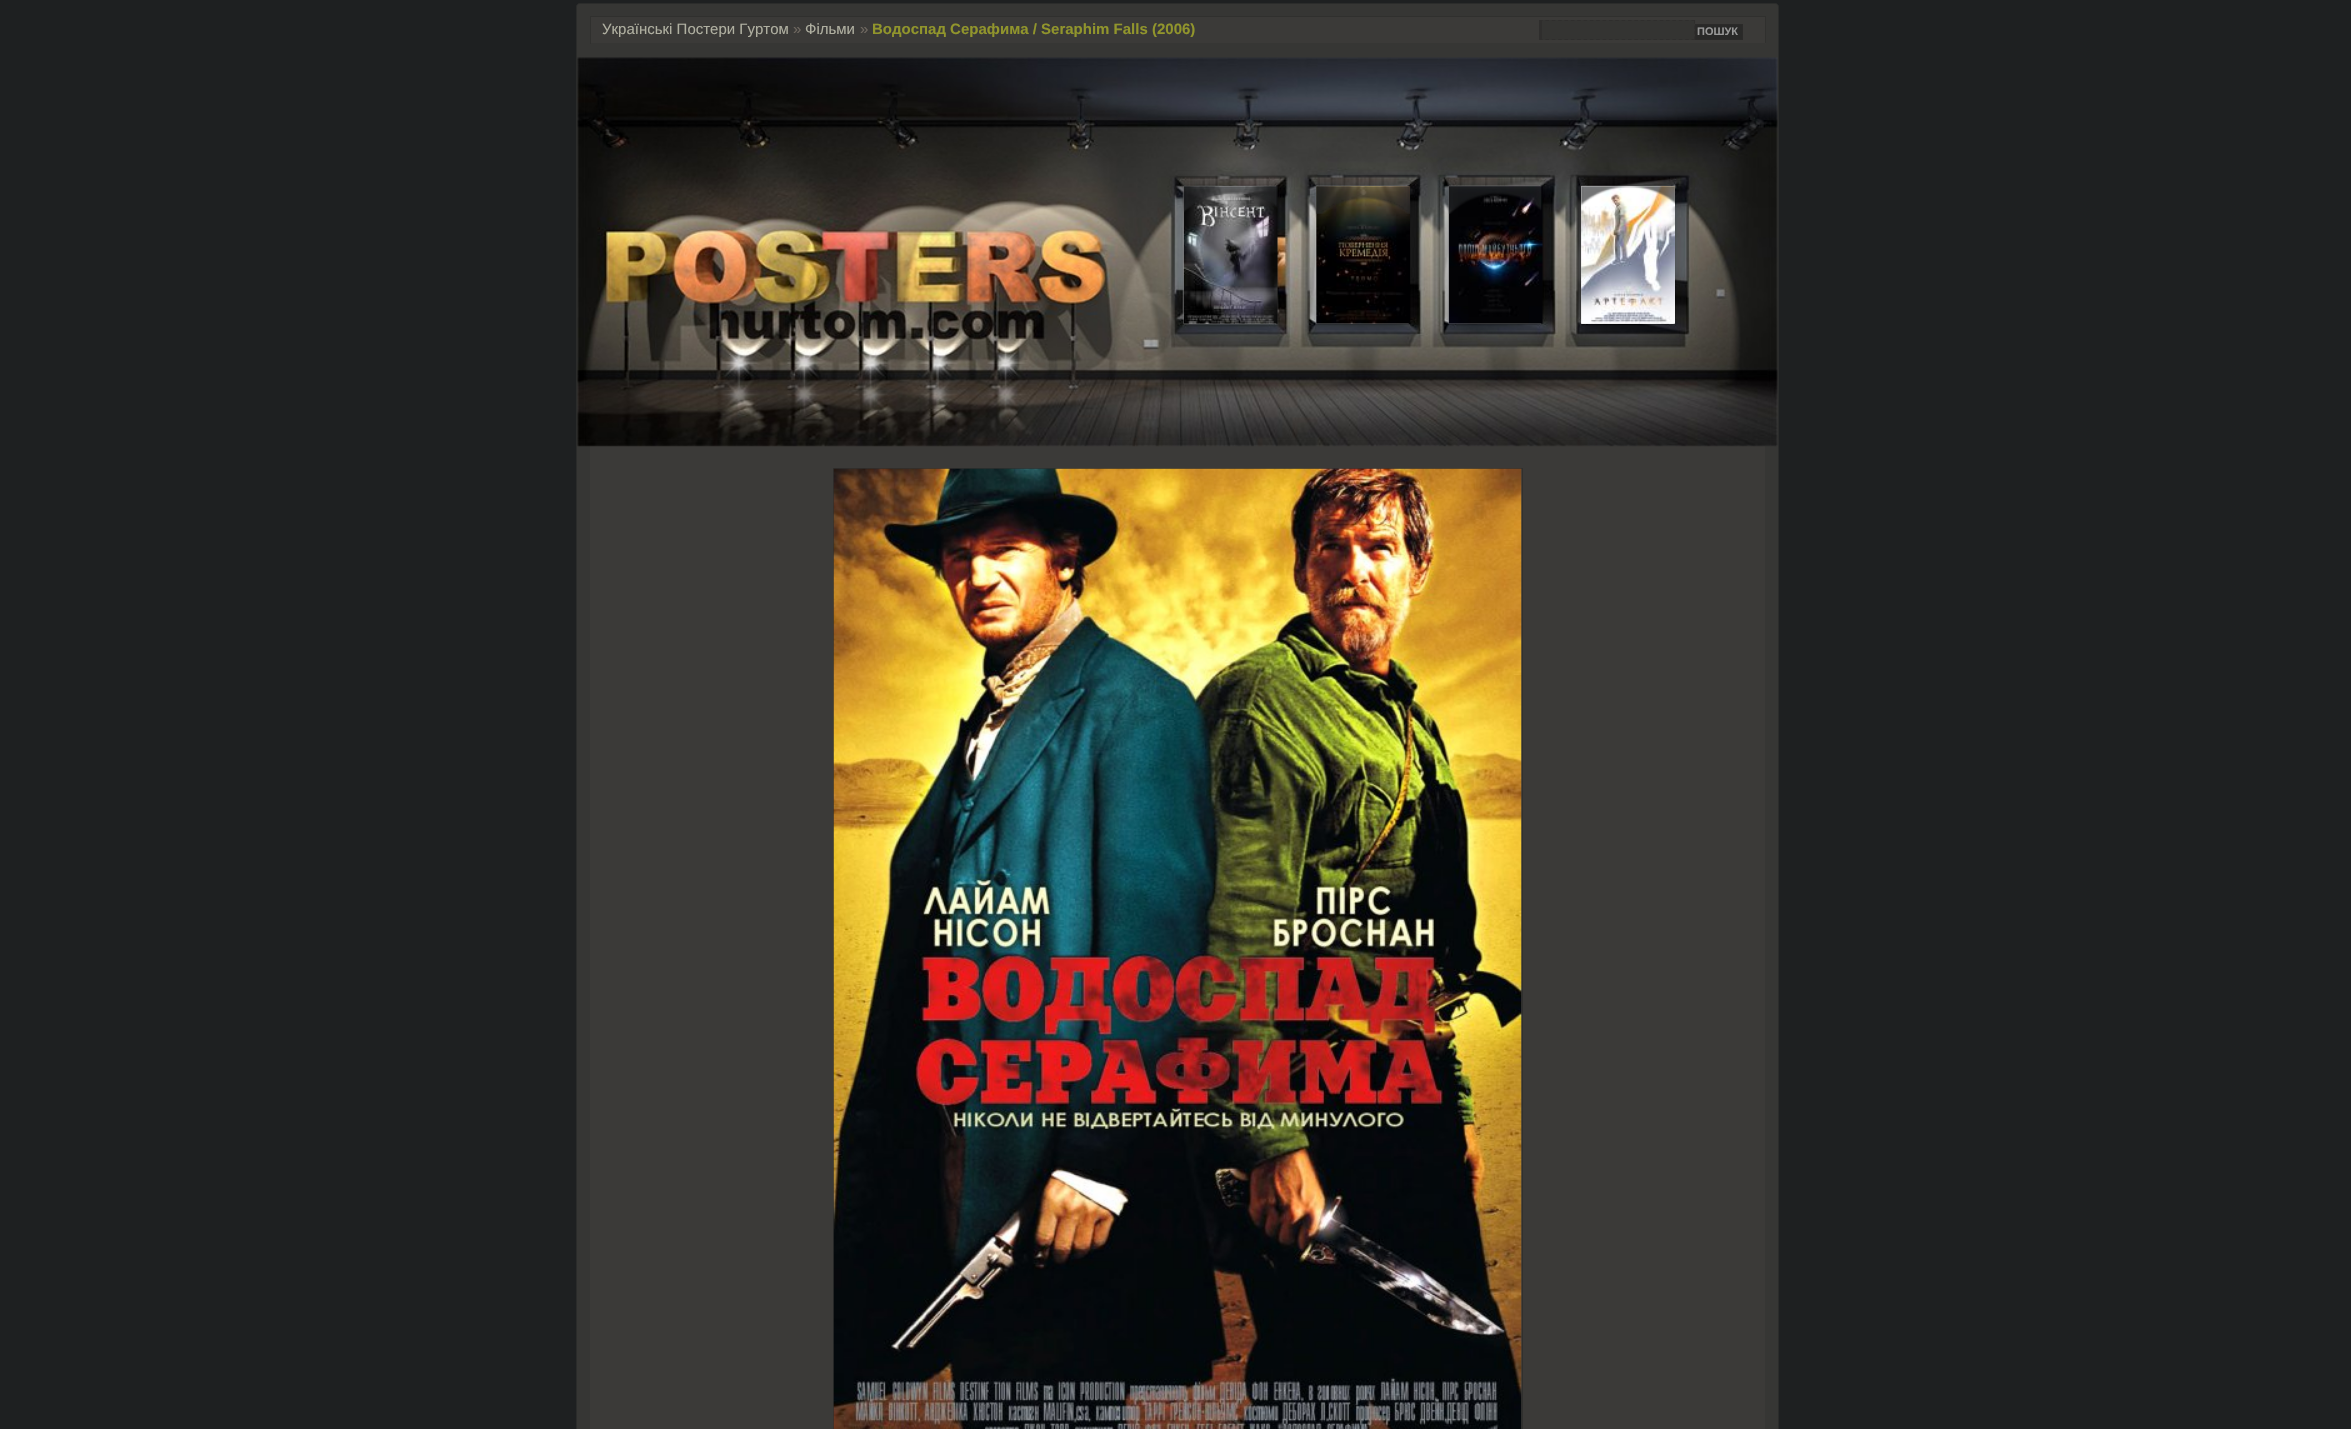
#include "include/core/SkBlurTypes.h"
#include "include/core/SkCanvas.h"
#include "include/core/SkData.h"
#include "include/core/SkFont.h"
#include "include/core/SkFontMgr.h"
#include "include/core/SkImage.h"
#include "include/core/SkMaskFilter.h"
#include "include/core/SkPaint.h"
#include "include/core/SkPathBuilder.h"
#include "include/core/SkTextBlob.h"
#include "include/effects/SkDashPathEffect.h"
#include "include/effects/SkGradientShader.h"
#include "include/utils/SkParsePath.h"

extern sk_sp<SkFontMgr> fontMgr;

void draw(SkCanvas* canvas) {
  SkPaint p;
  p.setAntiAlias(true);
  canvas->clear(SkColorSetRGB(30, 32, 33));
  p.setColor(SkColorSetRGB(54, 54, 52));
  canvas->drawPath(SkPathBuilder().moveTo(580, 3.5f).lineTo(1775, 3.5f).cubicTo(1777, 3.5f, 1778.5f, 5, 1778.5f, 7).lineTo(1778.5f, 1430).cubicTo(1778.5f, 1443.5f, 1767.5f, 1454.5f, 1754, 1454.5f).lineTo(601, 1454.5f).cubicTo(587.5f, 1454.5f, 576.5f, 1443.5f, 576.5f, 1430).lineTo(576.5f, 7).cubicTo(576.5f, 5, 578, 3.5f, 580, 3.5f).close().detach(), p);
  p.setStyle(SkPaint::kStroke_Style);
  p.setStrokeWidth(1);
  p.setColor(SkColorSetRGB(43, 44, 43));
  canvas->drawPath(SkPathBuilder().moveTo(580, 3.5f).lineTo(1775, 3.5f).cubicTo(1777, 3.5f, 1778.5f, 5, 1778.5f, 7).lineTo(1778.5f, 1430).cubicTo(1778.5f, 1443.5f, 1767.5f, 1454.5f, 1754, 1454.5f).lineTo(601, 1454.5f).cubicTo(587.5f, 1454.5f, 576.5f, 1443.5f, 576.5f, 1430).lineTo(576.5f, 7).cubicTo(576.5f, 5, 578, 3.5f, 580, 3.5f).close().detach(), p);
  p.setStyle(SkPaint::kFill_Style);
  p.setColor(SkColorSetRGB(59, 58, 56));
  canvas->drawRect(SkRect::MakeLTRB(591, 17, 1765, 43), p);
  p.setColor(SkColorSetRGB(48, 48, 46));
  canvas->drawRect(SkRect::MakeLTRB(590, 16, 1766, 17), p);
  canvas->drawRect(SkRect::MakeLTRB(1765, 16, 1766, 44), p);
  p.setColor(SkColorSetRGB(56, 55, 53));
  canvas->drawRect(SkRect::MakeLTRB(1765, 43, 1766, 44), p);
  p.setColor(SkColorSetRGB(48, 48, 46));
  canvas->drawRect(SkRect::MakeLTRB(590, 16, 591, 44), p);
  p.setColor(SkColorSetRGB(52, 52, 50));
  canvas->drawRect(SkRect::MakeLTRB(1542, 20, 1695, 40), p);
  p.setStyle(SkPaint::kStroke_Style);
  p.setStrokeWidth(1.2f);
  p.setColor(SkColorSetRGB(47, 46, 45));
  p.setPathEffect(SkDashPathEffect::Make({{3.75f, 2.6f}}, 0));
  canvas->drawPath(SkPathBuilder().moveTo(1539, 20.5f).lineTo(1695, 20.5f).detach(), p);
  p.setPathEffect(nullptr);
  p.setPathEffect(SkDashPathEffect::Make({{3.75f, 1.66f}}, 0));
  canvas->drawPath(SkPathBuilder().moveTo(1694.5f, 20).lineTo(1694.5f, 40).detach(), p);
  p.setPathEffect(nullptr);
  p.setPathEffect(SkDashPathEffect::Make({{3.75f, 2.6f}}, 0));
  canvas->drawPath(SkPathBuilder().moveTo(1539, 39.5f).lineTo(1695, 39.5f).detach(), p);
  p.setPathEffect(nullptr);
  p.setStyle(SkPaint::kFill_Style);
  canvas->drawRect(SkRect::MakeLTRB(1539, 20, 1542, 40), p);
  p.setColor(SkColorSetRGB(41, 41, 40));
  canvas->drawRect(SkRect::MakeLTRB(1695.5f, 24.5f, 1742.5f, 39.5f), p);
  p.setStyle(SkPaint::kStroke_Style);
  p.setStrokeWidth(1);
  p.setColor(SkColorSetRGB(43, 42, 41));
  canvas->drawRect(SkRect::MakeLTRB(1695.5f, 24.5f, 1742.5f, 39.5f), p);
  p.setStyle(SkPaint::kFill_Style);
  p.setColor(SkColorSetRGB(59, 58, 56));
  canvas->drawRect(SkRect::MakeLTRB(590, 446, 1765, 1429), p);
  canvas->drawImageRect(SkImages::DeferredFromEncodedData(SkData::MakeFromFileName("images/1.png")), SkRect::MakeLTRB(577, 57, 1778, 447), SkSamplingOptions());
  canvas->drawImageRect(SkImages::DeferredFromEncodedData(SkData::MakeFromFileName("images/2.png")), SkRect::MakeLTRB(1183, 186, 1278, 324), SkSamplingOptions());
  canvas->drawImageRect(SkImages::DeferredFromEncodedData(SkData::MakeFromFileName("images/3.png")), SkRect::MakeLTRB(1316, 186, 1410, 324), SkSamplingOptions());
  canvas->drawImageRect(SkImages::DeferredFromEncodedData(SkData::MakeFromFileName("images/4.png")), SkRect::MakeLTRB(1448, 186, 1543, 324), SkSamplingOptions());
  canvas->drawImageRect(SkImages::DeferredFromEncodedData(SkData::MakeFromFileName("images/5.png")), SkRect::MakeLTRB(1581, 186, 1675, 324), SkSamplingOptions());
  canvas->drawImageRect(SkImages::DeferredFromEncodedData(SkData::MakeFromFileName("images/6.png")), SkRect::MakeLTRB(1183, 186, 1675, 214), SkSamplingOptions());
  p.setStyle(SkPaint::kStroke_Style);
  p.setColor(SkColorSetRGB(48, 48, 46));
  canvas->drawRect(SkRect::MakeLTRB(833.5f, 468.5f, 1522.5f, 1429.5f), p);
  canvas->drawImageRect(SkImages::DeferredFromEncodedData(SkData::MakeFromFileName("images/7.png")), SkRect::MakeLTRB(833, 468, 1522, 1429), SkSamplingOptions());
  SkFont font1(fontMgr->matchFamilyStyle("Liberation Sans", SkFontStyle::Normal()), 15);
  font1.setSubpixel(true);
  p.setStyle(SkPaint::kFill_Style);
  p.setColor(SkColorSetRGB(176, 176, 161));
  canvas->drawString("Українські Постери Гуртом", 602, 34, font1, p);
  p.setColor(SkColorSetRGB(111, 104, 96));
  canvas->drawString("»", 793, 34, font1, p);
  p.setColor(SkColorSetRGB(176, 176, 161));
  canvas->drawString("Фільми", 805, 34, font1, p);
  p.setColor(SkColorSetRGB(111, 104, 96));
  canvas->drawString("»", 860, 34, font1, p);
  SkFont font2(fontMgr->matchFamilyStyle("Liberation Sans", SkFontStyle::Bold()), 15);
  font2.setSubpixel(true);
  p.setColor(SkColorSetRGB(145, 149, 44));
  canvas->drawString("Водоспад Серафима / Seraphim Falls (2006)", 872, 34, font2, p);
  SkFont font3(fontMgr->matchFamilyStyle("Liberation Sans", SkFontStyle::Bold()), 11);
  font3.setSubpixel(true);
  p.setColor(SkColorSetRGB(153, 153, 153));
  canvas->drawString("ПОШУК", 1697, 35, font3, p);
}
